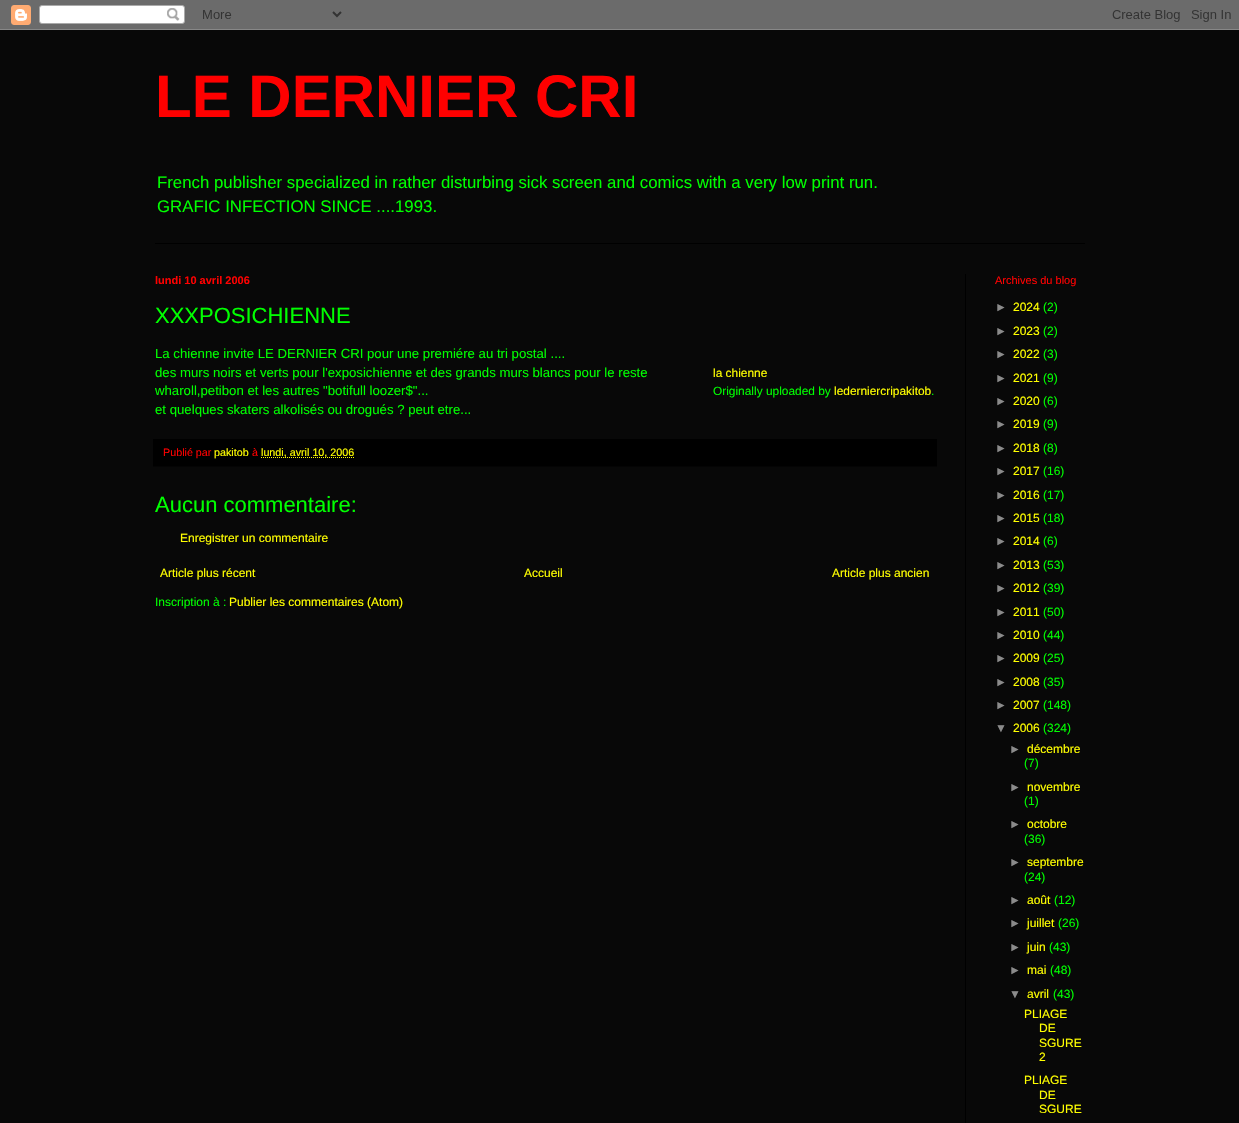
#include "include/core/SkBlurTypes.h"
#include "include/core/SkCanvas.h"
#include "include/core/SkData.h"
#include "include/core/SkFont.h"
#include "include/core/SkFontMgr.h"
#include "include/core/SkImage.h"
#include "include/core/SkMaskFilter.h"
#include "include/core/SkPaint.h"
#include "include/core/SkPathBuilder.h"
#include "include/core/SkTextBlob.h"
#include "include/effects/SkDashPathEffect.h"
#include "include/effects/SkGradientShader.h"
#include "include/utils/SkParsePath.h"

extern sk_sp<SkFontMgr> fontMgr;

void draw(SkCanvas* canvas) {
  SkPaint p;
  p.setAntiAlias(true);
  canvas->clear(SkColorSetRGB(8, 8, 8));
  canvas->drawImageRect(SkImages::DeferredFromEncodedData(SkData::MakeFromFileName("images/1.png")), SkRect::MakeLTRB(0, 0, 1239, 30), SkSamplingOptions());
  p.setColor(SK_ColorBLACK);
  canvas->drawRect(SkRect::MakeLTRB(155, 243, 1085, 244), p);
  canvas->drawRect(SkRect::MakeLTRB(965, 274, 966, 1123), p);
  canvas->drawRect(SkRect::MakeLTRB(153, 439, 937, 466), p);
  p.setColor(SkColorSetRGB(4, 4, 4));
  canvas->drawRect(SkRect::MakeLTRB(153, 466, 937, 467), p);
  p.setStyle(SkPaint::kStroke_Style);
  p.setStrokeWidth(1);
  p.setColor(SkColorSetRGB(255, 255, 0));
  p.setPathEffect(SkDashPathEffect::Make({{1, 1}}, 0));
  canvas->drawPath(SkPathBuilder().moveTo(261, 457.5f).lineTo(354.5f, 457.5f).detach(), p);
  p.setPathEffect(nullptr);
  SkFont font1(fontMgr->matchFamilyStyle("Liberation Sans", SkFontStyle::Bold()), 60);
  font1.setSubpixel(true);
  p.setStyle(SkPaint::kFill_Style);
  p.setColor(SkColorSetRGB(255, 0, 0));
  canvas->drawString("LE DERNIER CRI", 155, 117, font1, p);
  SkFont font2(fontMgr->matchFamilyStyle("Liberation Sans", SkFontStyle::Normal()), 16.8f);
  font2.setSubpixel(true);
  p.setColor(SkColorSetRGB(0, 255, 0));
  canvas->drawString("French publisher specialized in rather disturbing sick screen and comics with a very low print run.", 157, 188, font2, p);
  canvas->drawString("GRAFIC INFECTION SINCE ....1993.", 157, 212, font2, p);
  SkFont font3(fontMgr->matchFamilyStyle("Liberation Sans", SkFontStyle::Bold()), 11);
  font3.setSubpixel(true);
  p.setColor(SkColorSetRGB(255, 0, 0));
  canvas->drawString("lundi 10 avril 2006", 155, 284, font3, p);
  SkFont font4(fontMgr->matchFamilyStyle("Liberation Sans", SkFontStyle::Normal()), 22);
  font4.setSubpixel(true);
  p.setColor(SkColorSetRGB(0, 255, 0));
  canvas->drawString("XXXPOSICHIENNE", 155, 323, font4, p);
  SkFont font5(fontMgr->matchFamilyStyle("Liberation Sans", SkFontStyle::Normal()), 13.2f);
  font5.setSubpixel(true);
  canvas->drawString("La chienne invite LE DERNIER CRI pour une premiére au tri postal ....", 155, 358, font5, p);
  canvas->drawString("des murs noirs et verts pour l'exposichienne et des grands murs blancs pour le reste", 155, 377, font5, p);
  SkFont font6(fontMgr->matchFamilyStyle("Liberation Sans", SkFontStyle::Normal()), 11.9f);
  font6.setSubpixel(true);
  p.setColor(SkColorSetRGB(255, 255, 0));
  canvas->drawString("la chienne", 713, 377, font6, p);
  p.setColor(SkColorSetRGB(0, 255, 0));
  canvas->drawString("Originally uploaded by", 713, 395, font6, p);
  p.setColor(SkColorSetRGB(255, 255, 0));
  canvas->drawString("lederniercripakitob", 834, 395, font6, p);
  p.setColor(SkColorSetRGB(0, 255, 0));
  canvas->drawString(".", 931, 395, font6, p);
  canvas->drawString("wharoll,petibon et les autres \"botifull loozer$\"...", 155, 395, font5, p);
  canvas->drawString("et quelques skaters alkolisés ou drogués ? peut etre...", 155, 414, font5, p);
  SkFont font7(fontMgr->matchFamilyStyle("Liberation Sans", SkFontStyle::Normal()), 10.75f);
  font7.setSubpixel(true);
  p.setColor(SkColorSetRGB(255, 0, 0));
  canvas->drawString("Publié par", 163, 456, font7, p);
  p.setColor(SkColorSetRGB(255, 255, 0));
  canvas->drawString("pakitob", 214, 456, font7, p);
  p.setColor(SkColorSetRGB(255, 0, 0));
  canvas->drawString("à", 252, 456, font7, p);
  p.setColor(SkColorSetRGB(255, 255, 0));
  canvas->drawString("lundi, avril 10, 2006", 261, 456, font7, p);
  p.setColor(SkColorSetRGB(0, 255, 0));
  canvas->drawString("Aucun commentaire:", 155, 512, font4, p);
  SkFont font8(fontMgr->matchFamilyStyle("Liberation Sans", SkFontStyle::Normal()), 12);
  font8.setSubpixel(true);
  p.setColor(SkColorSetRGB(255, 255, 0));
  canvas->drawString("Enregistrer un commentaire", 180, 542, font8, p);
  canvas->drawString("Article plus récent", 160, 577, font8, p);
  canvas->drawString("Accueil", 524, 577, font8, p);
  canvas->drawString("Article plus ancien", 832, 577, font8, p);
  p.setColor(SkColorSetRGB(0, 255, 0));
  canvas->drawString("Inscription à :", 155, 606, font8, p);
  p.setColor(SkColorSetRGB(255, 255, 0));
  canvas->drawString("Publier les commentaires (Atom)", 229, 606, font8, p);
  SkFont font9(fontMgr->matchFamilyStyle("Liberation Sans", SkFontStyle::Normal()), 11);
  font9.setSubpixel(true);
  p.setColor(SkColorSetRGB(255, 0, 0));
  canvas->drawString("Archives du blog", 995, 284, font9, p);
  p.setColor(SkColorSetRGB(139, 139, 139));
  canvas->drawString("►", 995, 311, font8, p);
  p.setColor(SkColorSetRGB(255, 255, 0));
  canvas->drawString("2024", 1013, 311, font8, p);
  p.setColor(SkColorSetRGB(0, 255, 0));
  canvas->drawString("(2)", 1043, 311, font8, p);
  p.setColor(SkColorSetRGB(139, 139, 139));
  canvas->drawString("►", 995, 335, font8, p);
  p.setColor(SkColorSetRGB(255, 255, 0));
  canvas->drawString("2023", 1013, 335, font8, p);
  p.setColor(SkColorSetRGB(0, 255, 0));
  canvas->drawString("(2)", 1043, 335, font8, p);
  p.setColor(SkColorSetRGB(139, 139, 139));
  canvas->drawString("►", 995, 358, font8, p);
  p.setColor(SkColorSetRGB(255, 255, 0));
  canvas->drawString("2022", 1013, 358, font8, p);
  p.setColor(SkColorSetRGB(0, 255, 0));
  canvas->drawString("(3)", 1043, 358, font8, p);
  p.setColor(SkColorSetRGB(139, 139, 139));
  canvas->drawString("►", 995, 382, font8, p);
  p.setColor(SkColorSetRGB(255, 255, 0));
  canvas->drawString("2021", 1013, 382, font8, p);
  p.setColor(SkColorSetRGB(0, 255, 0));
  canvas->drawString("(9)", 1043, 382, font8, p);
  p.setColor(SkColorSetRGB(139, 139, 139));
  canvas->drawString("►", 995, 405, font8, p);
  p.setColor(SkColorSetRGB(255, 255, 0));
  canvas->drawString("2020", 1013, 405, font8, p);
  p.setColor(SkColorSetRGB(0, 255, 0));
  canvas->drawString("(6)", 1043, 405, font8, p);
  p.setColor(SkColorSetRGB(139, 139, 139));
  canvas->drawString("►", 995, 428, font8, p);
  p.setColor(SkColorSetRGB(255, 255, 0));
  canvas->drawString("2019", 1013, 428, font8, p);
  p.setColor(SkColorSetRGB(0, 255, 0));
  canvas->drawString("(9)", 1043, 428, font8, p);
  p.setColor(SkColorSetRGB(139, 139, 139));
  canvas->drawString("►", 995, 452, font8, p);
  p.setColor(SkColorSetRGB(255, 255, 0));
  canvas->drawString("2018", 1013, 452, font8, p);
  p.setColor(SkColorSetRGB(0, 255, 0));
  canvas->drawString("(8)", 1043, 452, font8, p);
  p.setColor(SkColorSetRGB(139, 139, 139));
  canvas->drawString("►", 995, 475, font8, p);
  p.setColor(SkColorSetRGB(255, 255, 0));
  canvas->drawString("2017", 1013, 475, font8, p);
  p.setColor(SkColorSetRGB(0, 255, 0));
  canvas->drawString("(16)", 1043, 475, font8, p);
  p.setColor(SkColorSetRGB(139, 139, 139));
  canvas->drawString("►", 995, 499, font8, p);
  p.setColor(SkColorSetRGB(255, 255, 0));
  canvas->drawString("2016", 1013, 499, font8, p);
  p.setColor(SkColorSetRGB(0, 255, 0));
  canvas->drawString("(17)", 1043, 499, font8, p);
  p.setColor(SkColorSetRGB(139, 139, 139));
  canvas->drawString("►", 995, 522, font8, p);
  p.setColor(SkColorSetRGB(255, 255, 0));
  canvas->drawString("2015", 1013, 522, font8, p);
  p.setColor(SkColorSetRGB(0, 255, 0));
  canvas->drawString("(18)", 1043, 522, font8, p);
  p.setColor(SkColorSetRGB(139, 139, 139));
  canvas->drawString("►", 995, 545, font8, p);
  p.setColor(SkColorSetRGB(255, 255, 0));
  canvas->drawString("2014", 1013, 545, font8, p);
  p.setColor(SkColorSetRGB(0, 255, 0));
  canvas->drawString("(6)", 1043, 545, font8, p);
  p.setColor(SkColorSetRGB(139, 139, 139));
  canvas->drawString("►", 995, 569, font8, p);
  p.setColor(SkColorSetRGB(255, 255, 0));
  canvas->drawString("2013", 1013, 569, font8, p);
  p.setColor(SkColorSetRGB(0, 255, 0));
  canvas->drawString("(53)", 1043, 569, font8, p);
  p.setColor(SkColorSetRGB(139, 139, 139));
  canvas->drawString("►", 995, 592, font8, p);
  p.setColor(SkColorSetRGB(255, 255, 0));
  canvas->drawString("2012", 1013, 592, font8, p);
  p.setColor(SkColorSetRGB(0, 255, 0));
  canvas->drawString("(39)", 1043, 592, font8, p);
  p.setColor(SkColorSetRGB(139, 139, 139));
  canvas->drawString("►", 995, 616, font8, p);
  p.setColor(SkColorSetRGB(255, 255, 0));
  canvas->drawString("2011", 1013, 616, font8, p);
  p.setColor(SkColorSetRGB(0, 255, 0));
  canvas->drawString("(50)", 1043, 616, font8, p);
  p.setColor(SkColorSetRGB(139, 139, 139));
  canvas->drawString("►", 995, 639, font8, p);
  p.setColor(SkColorSetRGB(255, 255, 0));
  canvas->drawString("2010", 1013, 639, font8, p);
  p.setColor(SkColorSetRGB(0, 255, 0));
  canvas->drawString("(44)", 1043, 639, font8, p);
  p.setColor(SkColorSetRGB(139, 139, 139));
  canvas->drawString("►", 995, 662, font8, p);
  p.setColor(SkColorSetRGB(255, 255, 0));
  canvas->drawString("2009", 1013, 662, font8, p);
  p.setColor(SkColorSetRGB(0, 255, 0));
  canvas->drawString("(25)", 1043, 662, font8, p);
  p.setColor(SkColorSetRGB(139, 139, 139));
  canvas->drawString("►", 995, 686, font8, p);
  p.setColor(SkColorSetRGB(255, 255, 0));
  canvas->drawString("2008", 1013, 686, font8, p);
  p.setColor(SkColorSetRGB(0, 255, 0));
  canvas->drawString("(35)", 1043, 686, font8, p);
  p.setColor(SkColorSetRGB(139, 139, 139));
  canvas->drawString("►", 995, 709, font8, p);
  p.setColor(SkColorSetRGB(255, 255, 0));
  canvas->drawString("2007", 1013, 709, font8, p);
  p.setColor(SkColorSetRGB(0, 255, 0));
  canvas->drawString("(148)", 1043, 709, font8, p);
  p.setColor(SkColorSetRGB(139, 139, 139));
  canvas->drawString("▼", 995, 732, font8, p);
  p.setColor(SkColorSetRGB(255, 255, 0));
  canvas->drawString("2006", 1013, 732, font8, p);
  p.setColor(SkColorSetRGB(0, 255, 0));
  canvas->drawString("(324)", 1043, 732, font8, p);
  p.setColor(SkColorSetRGB(139, 139, 139));
  canvas->drawString("►", 1009, 753, font8, p);
  p.setColor(SkColorSetRGB(255, 255, 0));
  canvas->drawString("décembre", 1027, 753, font8, p);
  p.setColor(SkColorSetRGB(0, 255, 0));
  canvas->drawString("(7)", 1024, 767, font8, p);
  p.setColor(SkColorSetRGB(139, 139, 139));
  canvas->drawString("►", 1009, 791, font8, p);
  p.setColor(SkColorSetRGB(255, 255, 0));
  canvas->drawString("novembre", 1027, 791, font8, p);
  p.setColor(SkColorSetRGB(0, 255, 0));
  canvas->drawString("(1)", 1024, 805, font8, p);
  p.setColor(SkColorSetRGB(139, 139, 139));
  canvas->drawString("►", 1009, 828, font8, p);
  p.setColor(SkColorSetRGB(255, 255, 0));
  canvas->drawString("octobre", 1027, 828, font8, p);
  p.setColor(SkColorSetRGB(0, 255, 0));
  canvas->drawString("(36)", 1024, 843, font8, p);
  p.setColor(SkColorSetRGB(139, 139, 139));
  canvas->drawString("►", 1009, 866, font8, p);
  p.setColor(SkColorSetRGB(255, 255, 0));
  canvas->drawString("septembre", 1027, 866, font8, p);
  p.setColor(SkColorSetRGB(0, 255, 0));
  canvas->drawString("(24)", 1024, 881, font8, p);
  p.setColor(SkColorSetRGB(139, 139, 139));
  canvas->drawString("►", 1009, 904, font8, p);
  p.setColor(SkColorSetRGB(255, 255, 0));
  canvas->drawString("août", 1027, 904, font8, p);
  p.setColor(SkColorSetRGB(0, 255, 0));
  canvas->drawString("(12)", 1054, 904, font8, p);
  p.setColor(SkColorSetRGB(139, 139, 139));
  canvas->drawString("►", 1009, 927, font8, p);
  p.setColor(SkColorSetRGB(255, 255, 0));
  canvas->drawString("juillet", 1027, 927, font8, p);
  p.setColor(SkColorSetRGB(0, 255, 0));
  canvas->drawString("(26)", 1058, 927, font8, p);
  p.setColor(SkColorSetRGB(139, 139, 139));
  canvas->drawString("►", 1009, 951, font8, p);
  p.setColor(SkColorSetRGB(255, 255, 0));
  canvas->drawString("juin", 1027, 951, font8, p);
  p.setColor(SkColorSetRGB(0, 255, 0));
  canvas->drawString("(43)", 1049, 951, font8, p);
  p.setColor(SkColorSetRGB(139, 139, 139));
  canvas->drawString("►", 1009, 974, font8, p);
  p.setColor(SkColorSetRGB(255, 255, 0));
  canvas->drawString("mai", 1027, 974, font8, p);
  p.setColor(SkColorSetRGB(0, 255, 0));
  canvas->drawString("(48)", 1050, 974, font8, p);
  p.setColor(SkColorSetRGB(139, 139, 139));
  canvas->drawString("▼", 1009, 998, font8, p);
  p.setColor(SkColorSetRGB(255, 255, 0));
  canvas->drawString("avril", 1027, 998, font8, p);
  p.setColor(SkColorSetRGB(0, 255, 0));
  canvas->drawString("(43)", 1053, 998, font8, p);
  p.setColor(SkColorSetRGB(255, 255, 0));
  canvas->drawString("PLIAGE", 1024, 1018, font8, p);
  canvas->drawString("DE", 1039, 1032, font8, p);
  canvas->drawString("SGURE", 1039, 1047, font8, p);
  canvas->drawString("2", 1039, 1061, font8, p);
  canvas->drawString("PLIAGE", 1024, 1084, font8, p);
  canvas->drawString("DE", 1039, 1099, font8, p);
  canvas->drawString("SGURE", 1039, 1113, font8, p);
}
